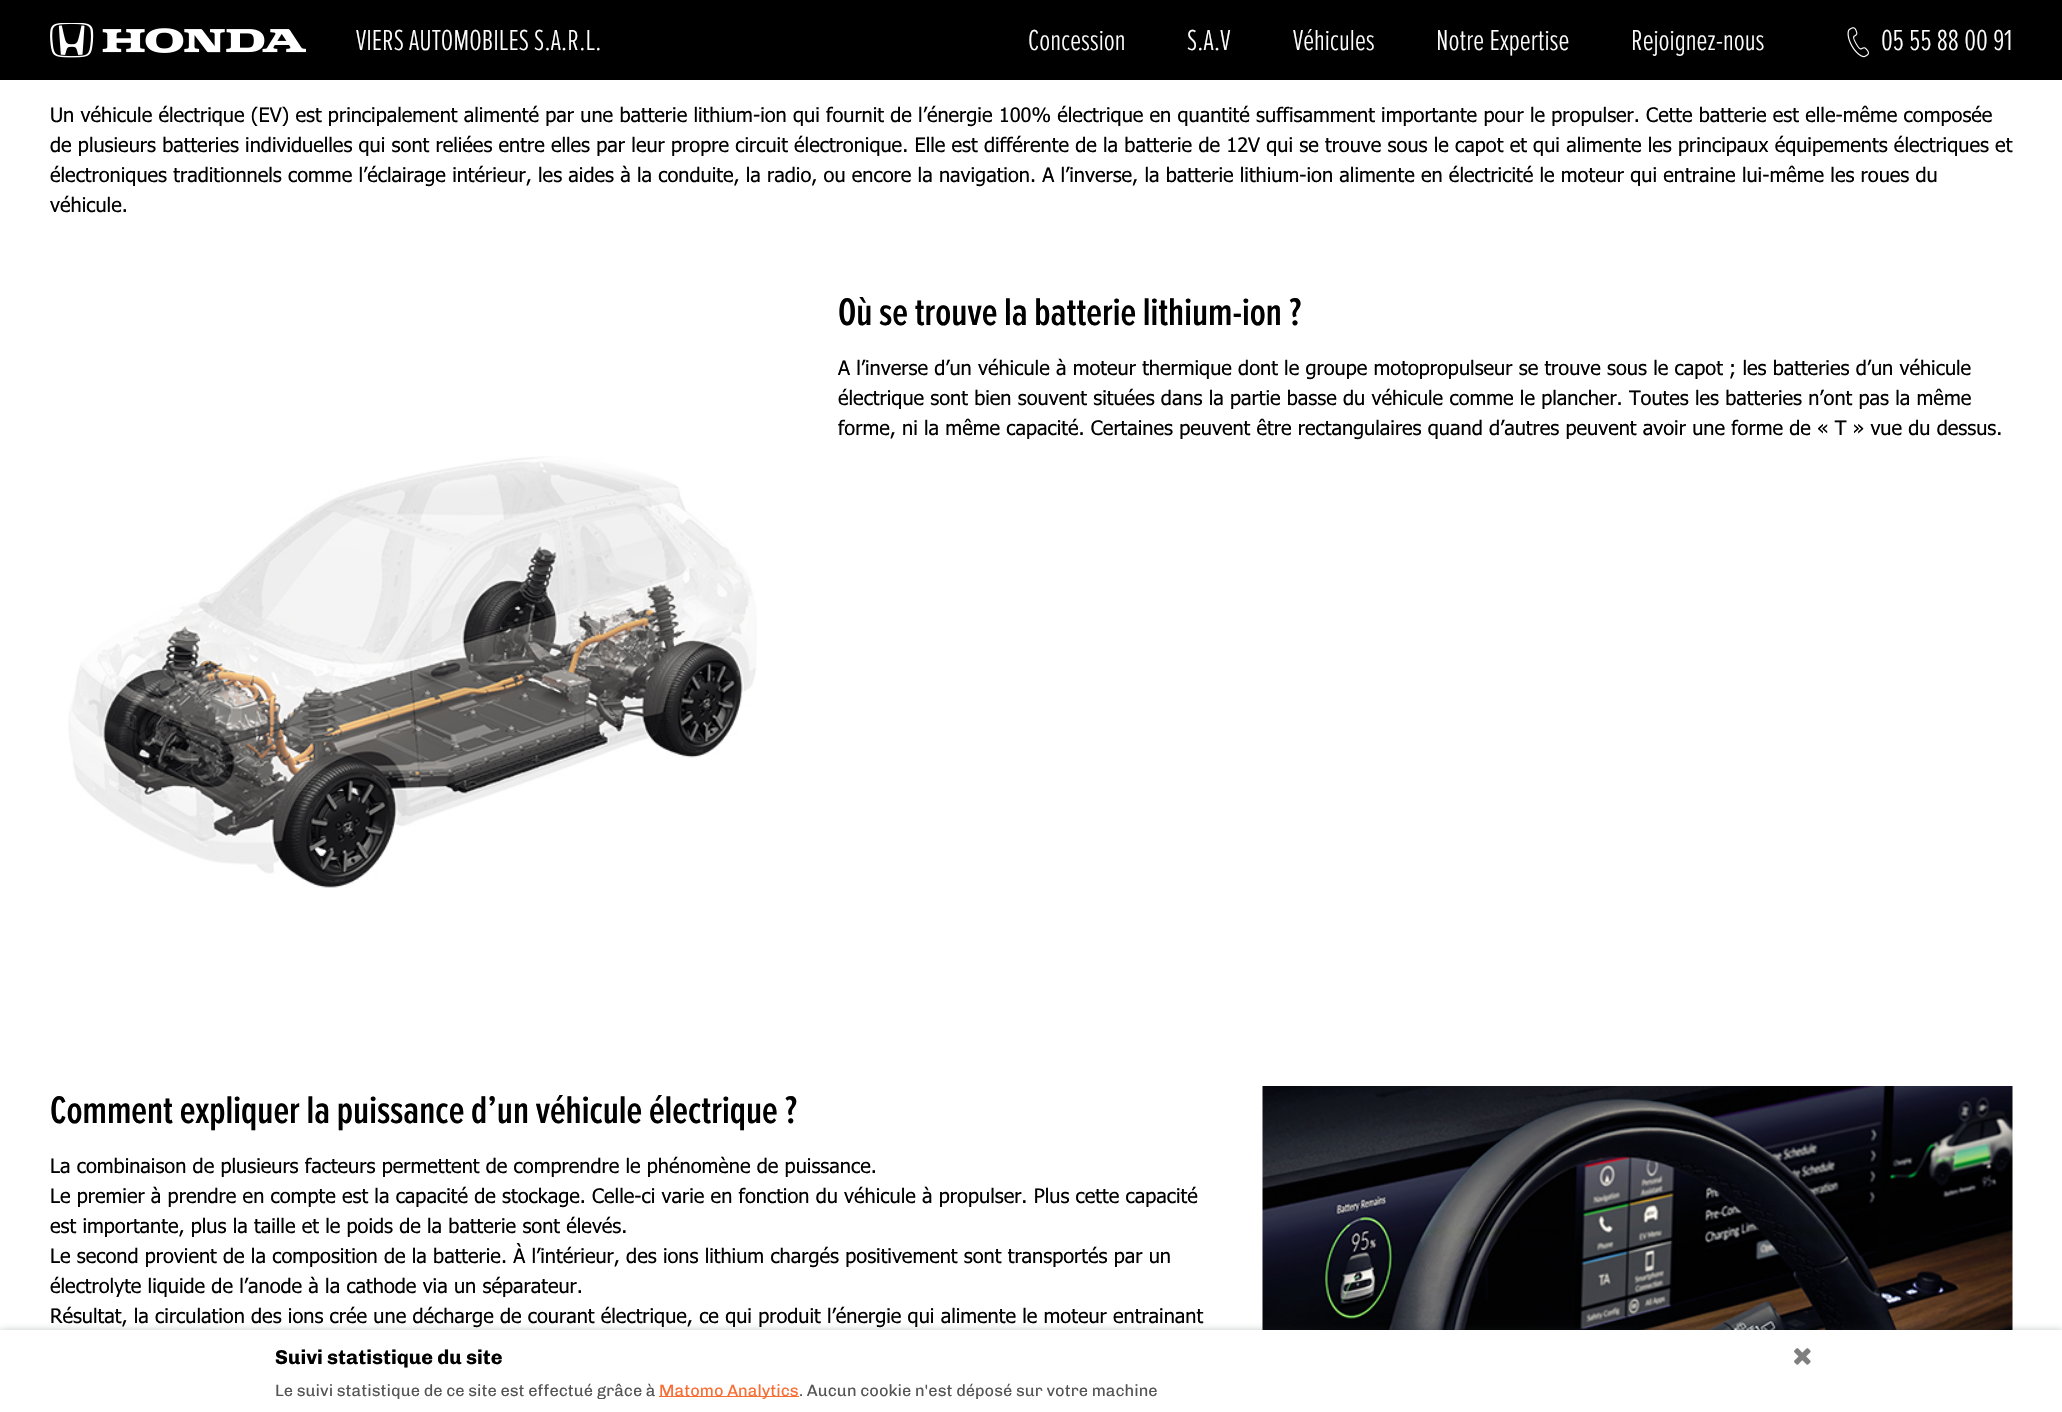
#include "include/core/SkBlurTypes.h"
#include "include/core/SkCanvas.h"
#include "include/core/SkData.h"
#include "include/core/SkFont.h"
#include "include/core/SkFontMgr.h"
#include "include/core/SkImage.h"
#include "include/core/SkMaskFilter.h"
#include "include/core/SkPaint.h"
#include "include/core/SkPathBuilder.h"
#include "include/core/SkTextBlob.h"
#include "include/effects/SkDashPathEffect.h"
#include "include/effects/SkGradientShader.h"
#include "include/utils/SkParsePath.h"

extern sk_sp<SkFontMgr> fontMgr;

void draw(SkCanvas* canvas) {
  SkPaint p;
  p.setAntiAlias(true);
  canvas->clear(SK_ColorWHITE);
  p.setColor(SK_ColorBLACK);
  canvas->drawRect(SkRect::MakeLTRB(0, 0, 2062, 80), p);
  canvas->drawImageRect(SkImages::DeferredFromEncodedData(SkData::MakeFromFileName("images/1.png")), SkRect::MakeLTRB(50, 23, 306, 58), SkSamplingOptions());
  canvas->drawImageRect(SkImages::DeferredFromEncodedData(SkData::MakeFromFileName("images/2.png")), SkRect::MakeLTRB(1847, 27, 1869, 58), SkSamplingOptions());
  canvas->drawImageRect(SkImages::DeferredFromEncodedData(SkData::MakeFromFileName("images/3.png")), SkRect::MakeLTRB(68, 456, 757, 888), SkSamplingOptions());
  canvas->drawImageRect(SkImages::DeferredFromEncodedData(SkData::MakeFromFileName("images/4.png")), SkRect::MakeLTRB(1262, 1086, 2013, 1330), SkSamplingOptions());
  p.setColor(SkColorSetARGB(82, 29, 51, 51));
  p.setMaskFilter(SkMaskFilter::MakeBlur(kNormal_SkBlurStyle, 4));
  canvas->drawRect(SkRect::MakeLTRB(0, 1331, 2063, 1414), p);
  p.setMaskFilter(nullptr);
  p.setColor(SK_ColorWHITE);
  canvas->drawRect(SkRect::MakeLTRB(0, 1330, 2062, 1412), p);
  canvas->drawImageRect(SkImages::DeferredFromEncodedData(SkData::MakeFromFileName("images/5.png")), SkRect::MakeLTRB(1794, 1348, 1811, 1365), SkSamplingOptions());
  p.setColor(SkColorSetRGB(248, 109, 52));
  canvas->drawRect(SkRect::MakeLTRB(659, 1396, 799, 1397), p);
  SkFont font1(fontMgr->matchFamilyStyle("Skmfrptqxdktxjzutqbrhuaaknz", SkFontStyle(300, SkFontStyle::kNormal_Width, SkFontStyle::kUpright_Slant)), 30);
  font1.setSubpixel(true);
  p.setColor(SK_ColorWHITE);
  canvas->drawString("VIERS AUTOMOBILES S.A.R.L.", 356, 50, font1, p);
  canvas->drawString("Concession", 1028, 50, font1, p);
  canvas->drawString("S.A.V", 1187, 50, font1, p);
  canvas->drawString("Véhicules", 1293, 50, font1, p);
  canvas->drawString("Notre Expertise", 1436, 50, font1, p);
  canvas->drawString("Rejoignez-nous", 1631, 50, font1, p);
  canvas->drawString("05 55 88 00 91", 1881, 50, font1, p);
  SkFont font2(fontMgr->matchFamilyStyle("Tahoma", SkFontStyle::Normal()), 20);
  font2.setSubpixel(true);
  p.setColor(SK_ColorBLACK);
  canvas->drawString("Un véhicule électrique (EV) est principalement alimenté par une batterie lithium-ion qui fournit de l’énergie 100% électrique en quantité suffisamment importante pour le propulser. Cette batterie est elle-même composée", 50, 122, font2, p);
  canvas->drawString("de plusieurs batteries individuelles qui sont reliées entre elles par leur propre circuit électronique. Elle est différente de la batterie de 12V qui se trouve sous le capot et qui alimente les principaux équipements électriques et", 50, 152, font2, p);
  canvas->drawString("électroniques traditionnels comme l’éclairage intérieur, les aides à la conduite, la radio, ou encore la navigation. A l’inverse, la batterie lithium-ion alimente en électricité le moteur qui entraine lui-même les roues du", 50, 182, font2, p);
  canvas->drawString("véhicule.", 50, 212, font2, p);
  SkFont font3(fontMgr->matchFamilyStyle("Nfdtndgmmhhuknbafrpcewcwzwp", SkFontStyle(600, SkFontStyle::kNormal_Width, SkFontStyle::kUpright_Slant)), 40);
  font3.setSubpixel(true);
  canvas->drawString("Où se trouve la batterie lithium-ion ?", 838, 325, font3, p);
  canvas->drawString("A l’inverse d’un véhicule à moteur thermique dont le groupe motopropulseur se trouve sous le capot ; les batteries d’un véhicule", 838, 375, font2, p);
  canvas->drawString("électrique sont bien souvent situées dans la partie basse du véhicule comme le plancher. Toutes les batteries n’ont pas la même", 838, 405, font2, p);
  canvas->drawString("forme, ni la même capacité. Certaines peuvent être rectangulaires quand d’autres peuvent avoir une forme de « T » vue du dessus.", 838, 435, font2, p);
  canvas->drawString("Comment expliquer la puissance d’un véhicule électrique ?", 50, 1123, font3, p);
  canvas->drawString("La combinaison de plusieurs facteurs permettent de comprendre le phénomène de puissance.", 50, 1173, font2, p);
  canvas->drawString("Le premier à prendre en compte est la capacité de stockage. Celle-ci varie en fonction du véhicule à propulser. Plus cette capacité", 50, 1203, font2, p);
  canvas->drawString("est importante, plus la taille et le poids de la batterie sont élevés.", 50, 1233, font2, p);
  canvas->drawString("Le second provient de la composition de la batterie. À l’intérieur, des ions lithium chargés positivement sont transportés par un", 50, 1263, font2, p);
  canvas->drawString("électrolyte liquide de l’anode à la cathode via un séparateur.", 50, 1293, font2, p);
  canvas->drawString("Résultat, la circulation des ions crée une décharge de courant électrique, ce qui produit l’énergie qui alimente le moteur entrainant", 50, 1323, font2, p);
  SkFont font4(fontMgr->matchFamilyStyle("Chivo", SkFontStyle::Bold()), 20);
  font4.setSubpixel(true);
  canvas->drawString("Suivi statistique du site", 275, 1364, font4, p);
  SkFont font5(fontMgr->matchFamilyStyle("Chivo", SkFontStyle::Normal()), 16.25f);
  font5.setSubpixel(true);
  p.setColor(SkColorSetRGB(85, 85, 85));
  canvas->drawString("Le suivi statistique de ce site est effectué grâce à", 275, 1396, font5, p);
  p.setColor(SkColorSetRGB(248, 109, 52));
  canvas->drawString("Matomo Analytics", 659, 1396, font5, p);
  p.setColor(SkColorSetRGB(85, 85, 85));
  canvas->drawString(". Aucun cookie n'est déposé sur votre machine", 799, 1396, font5, p);
}
